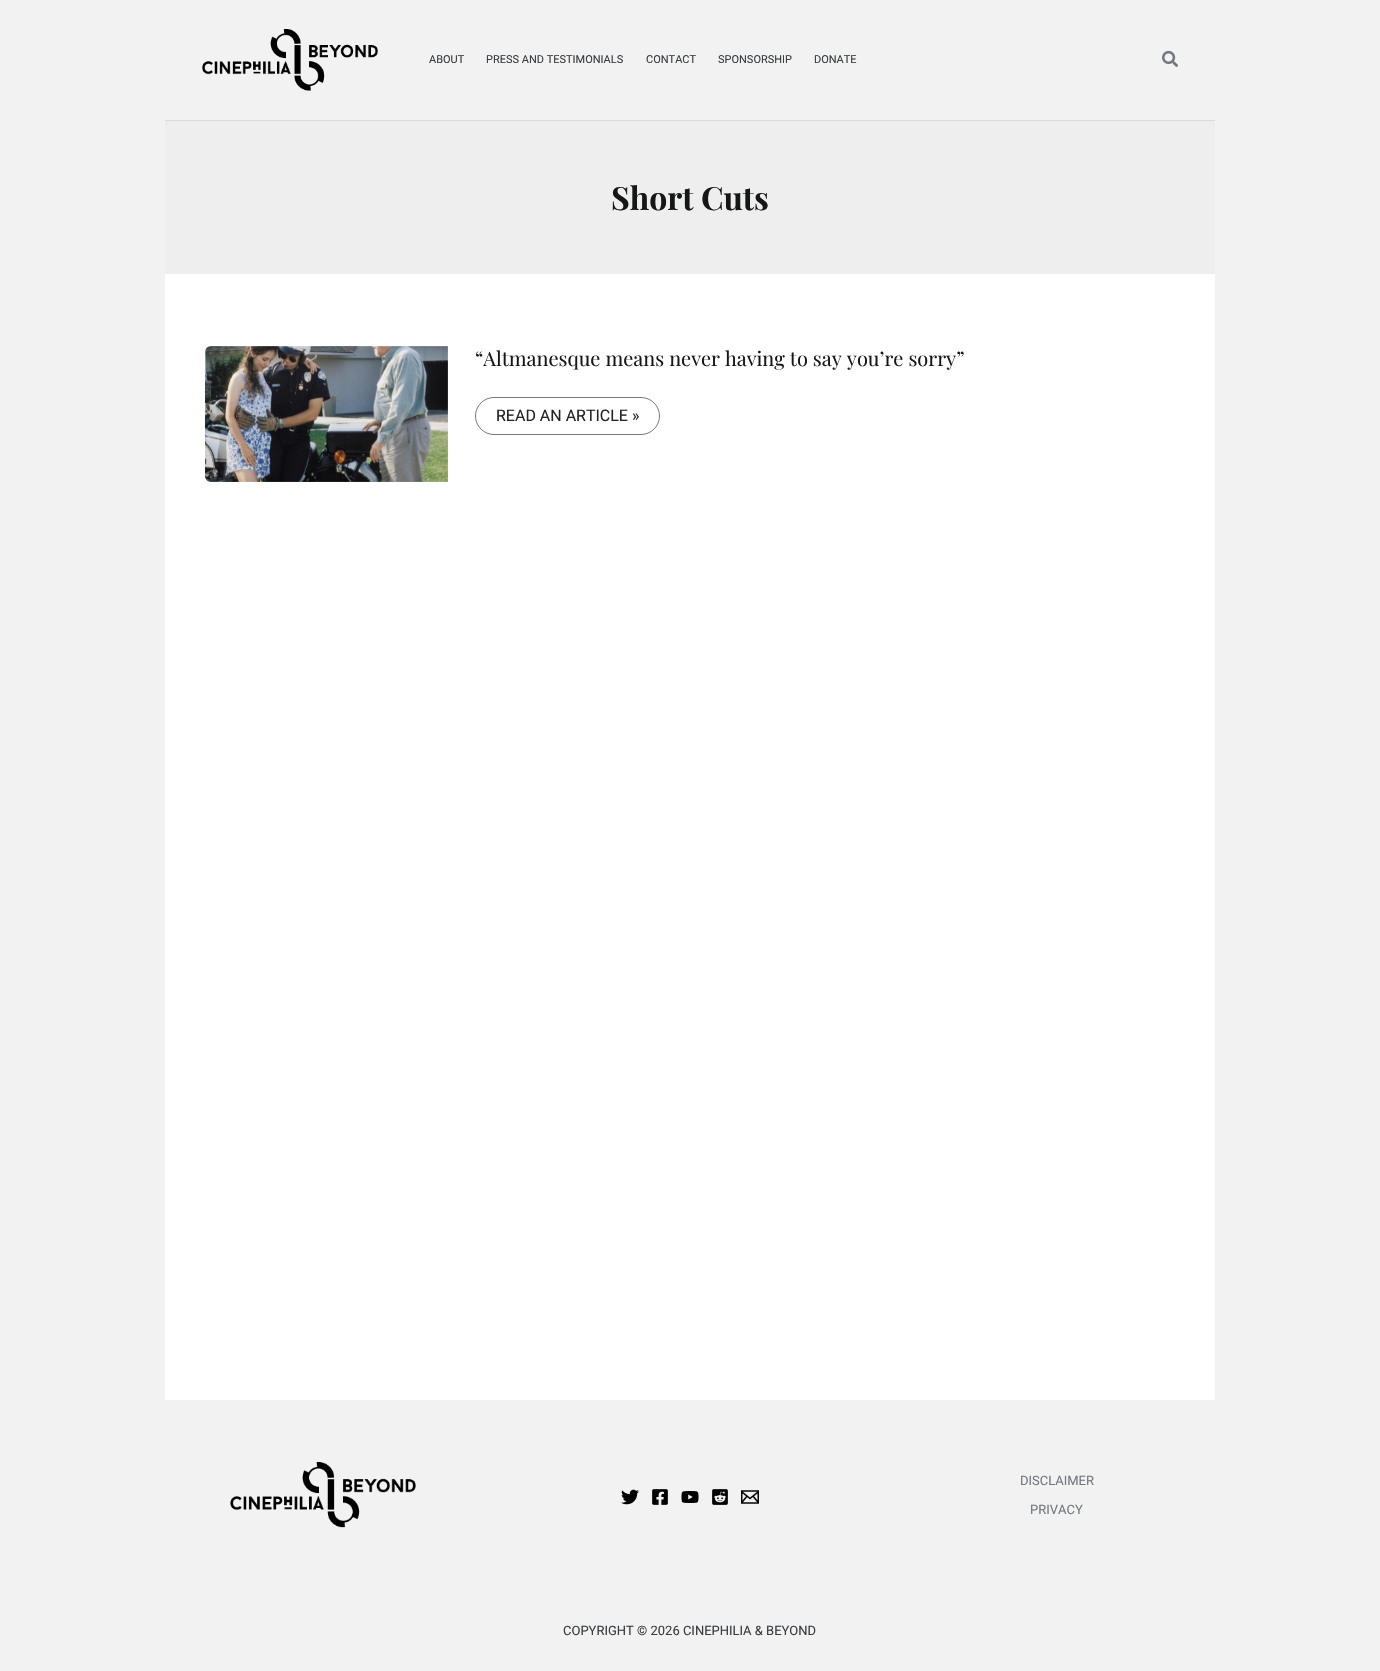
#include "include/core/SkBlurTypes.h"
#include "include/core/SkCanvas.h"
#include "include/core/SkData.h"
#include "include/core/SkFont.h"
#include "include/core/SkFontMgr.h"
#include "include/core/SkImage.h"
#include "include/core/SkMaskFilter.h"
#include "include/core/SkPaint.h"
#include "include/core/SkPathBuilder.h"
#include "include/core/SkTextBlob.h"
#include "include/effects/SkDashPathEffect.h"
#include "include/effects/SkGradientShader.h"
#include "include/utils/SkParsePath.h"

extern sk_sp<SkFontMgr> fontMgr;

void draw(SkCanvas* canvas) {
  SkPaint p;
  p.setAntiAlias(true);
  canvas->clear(SkColorSetRGB(242, 242, 242));
  p.setColor(SkColorSetRGB(218, 218, 218));
  canvas->drawRect(SkRect::MakeLTRB(165, 120, 1215, 121), p);
  canvas->drawImageRect(SkImages::DeferredFromEncodedData(SkData::MakeFromFileName("images/1.png")), SkRect::MakeLTRB(202, 29, 378, 91), SkSamplingOptions());
  canvas->drawImageRect(SkImages::DeferredFromEncodedData(SkData::MakeFromFileName("images/2.png")), SkRect::MakeLTRB(1162, 50, 1178, 67), SkSamplingOptions());
  p.setColor(SkColorSetRGB(238, 238, 238));
  canvas->drawRect(SkRect::MakeLTRB(165, 121, 1215, 274), p);
  p.setColor(SK_ColorWHITE);
  canvas->drawRect(SkRect::MakeLTRB(165, 274, 1215, 1400), p);
  canvas->drawImageRect(SkImages::DeferredFromEncodedData(SkData::MakeFromFileName("images/3.png")), SkRect::MakeLTRB(205, 346, 448, 482), SkSamplingOptions());
  p.setStyle(SkPaint::kStroke_Style);
  p.setStrokeWidth(1);
  p.setColor(SkColorSetRGB(115, 120, 128));
  canvas->drawRoundRect(SkRect::MakeLTRB(475.5f, 397.5f, 659.5f, 434.5f), 18.5f, 18.5f, p);
  canvas->drawImageRect(SkImages::DeferredFromEncodedData(SkData::MakeFromFileName("images/4.png")), SkRect::MakeLTRB(230, 1462, 416, 1528), SkSamplingOptions());
  canvas->drawImageRect(SkImages::DeferredFromEncodedData(SkData::MakeFromFileName("images/5.png")), SkRect::MakeLTRB(621, 1489, 639, 1505), SkSamplingOptions());
  canvas->drawImageRect(SkImages::DeferredFromEncodedData(SkData::MakeFromFileName("images/6.png")), SkRect::MakeLTRB(652, 1489, 668, 1505), SkSamplingOptions());
  canvas->drawImageRect(SkImages::DeferredFromEncodedData(SkData::MakeFromFileName("images/7.png")), SkRect::MakeLTRB(681, 1491, 699, 1503), SkSamplingOptions());
  canvas->drawImageRect(SkImages::DeferredFromEncodedData(SkData::MakeFromFileName("images/8.png")), SkRect::MakeLTRB(712, 1489, 728, 1505), SkSamplingOptions());
  canvas->drawImageRect(SkImages::DeferredFromEncodedData(SkData::MakeFromFileName("images/9.png")), SkRect::MakeLTRB(741, 1490, 759, 1504), SkSamplingOptions());
  SkFont font1(fontMgr->matchFamilyStyle("Roboto", SkFontStyle::Normal()), 11);
  font1.setSubpixel(true);
  p.setStyle(SkPaint::kFill_Style);
  p.setColor(SkColorSetRGB(57, 60, 64));
  canvas->drawString("ABOUT", 429, 63, font1, p);
  canvas->drawString("PRESS AND TESTIMONIALS", 486, 63, font1, p);
  canvas->drawString("CONTACT", 646, 63, font1, p);
  canvas->drawString("SPONSORSHIP", 718, 63, font1, p);
  canvas->drawString("DONATE", 814, 63, font1, p);
  SkFont font2(fontMgr->matchFamilyStyle("Playfair Display", SkFontStyle::Bold()), 32);
  font2.setSubpixel(true);
  p.setColor(SkColorSetRGB(21, 22, 22));
  canvas->drawString("Short Cuts", 611, 210, font2, p);
  SkFont font3(fontMgr->matchFamilyStyle("Playfair Display", SkFontStyle::Normal()), 20);
  font3.setSubpixel(true);
  canvas->drawString("“Altmanesque means never having to say you’re sorry”", 475, 366, font3, p);
  SkFont font4(fontMgr->matchFamilyStyle("Roboto", SkFontStyle::Normal()), 16);
  font4.setSubpixel(true);
  p.setColor(SkColorSetRGB(34, 34, 34));
  canvas->drawString("READ AN ARTICLE »", 496, 421, font4, p);
  SkFont font5(fontMgr->matchFamilyStyle("Roboto", SkFontStyle::Normal()), 13);
  font5.setSubpixel(true);
  p.setColor(SkColorSetRGB(115, 120, 128));
  canvas->drawString("DISCLAIMER", 1020, 1485, font5, p);
  canvas->drawString("PRIVACY", 1030, 1514, font5, p);
  p.setColor(SkColorSetRGB(57, 60, 64));
  canvas->drawString("COPYRIGHT © 2026 CINEPHILIA & BEYOND", 563, 1635, font5, p);
}
